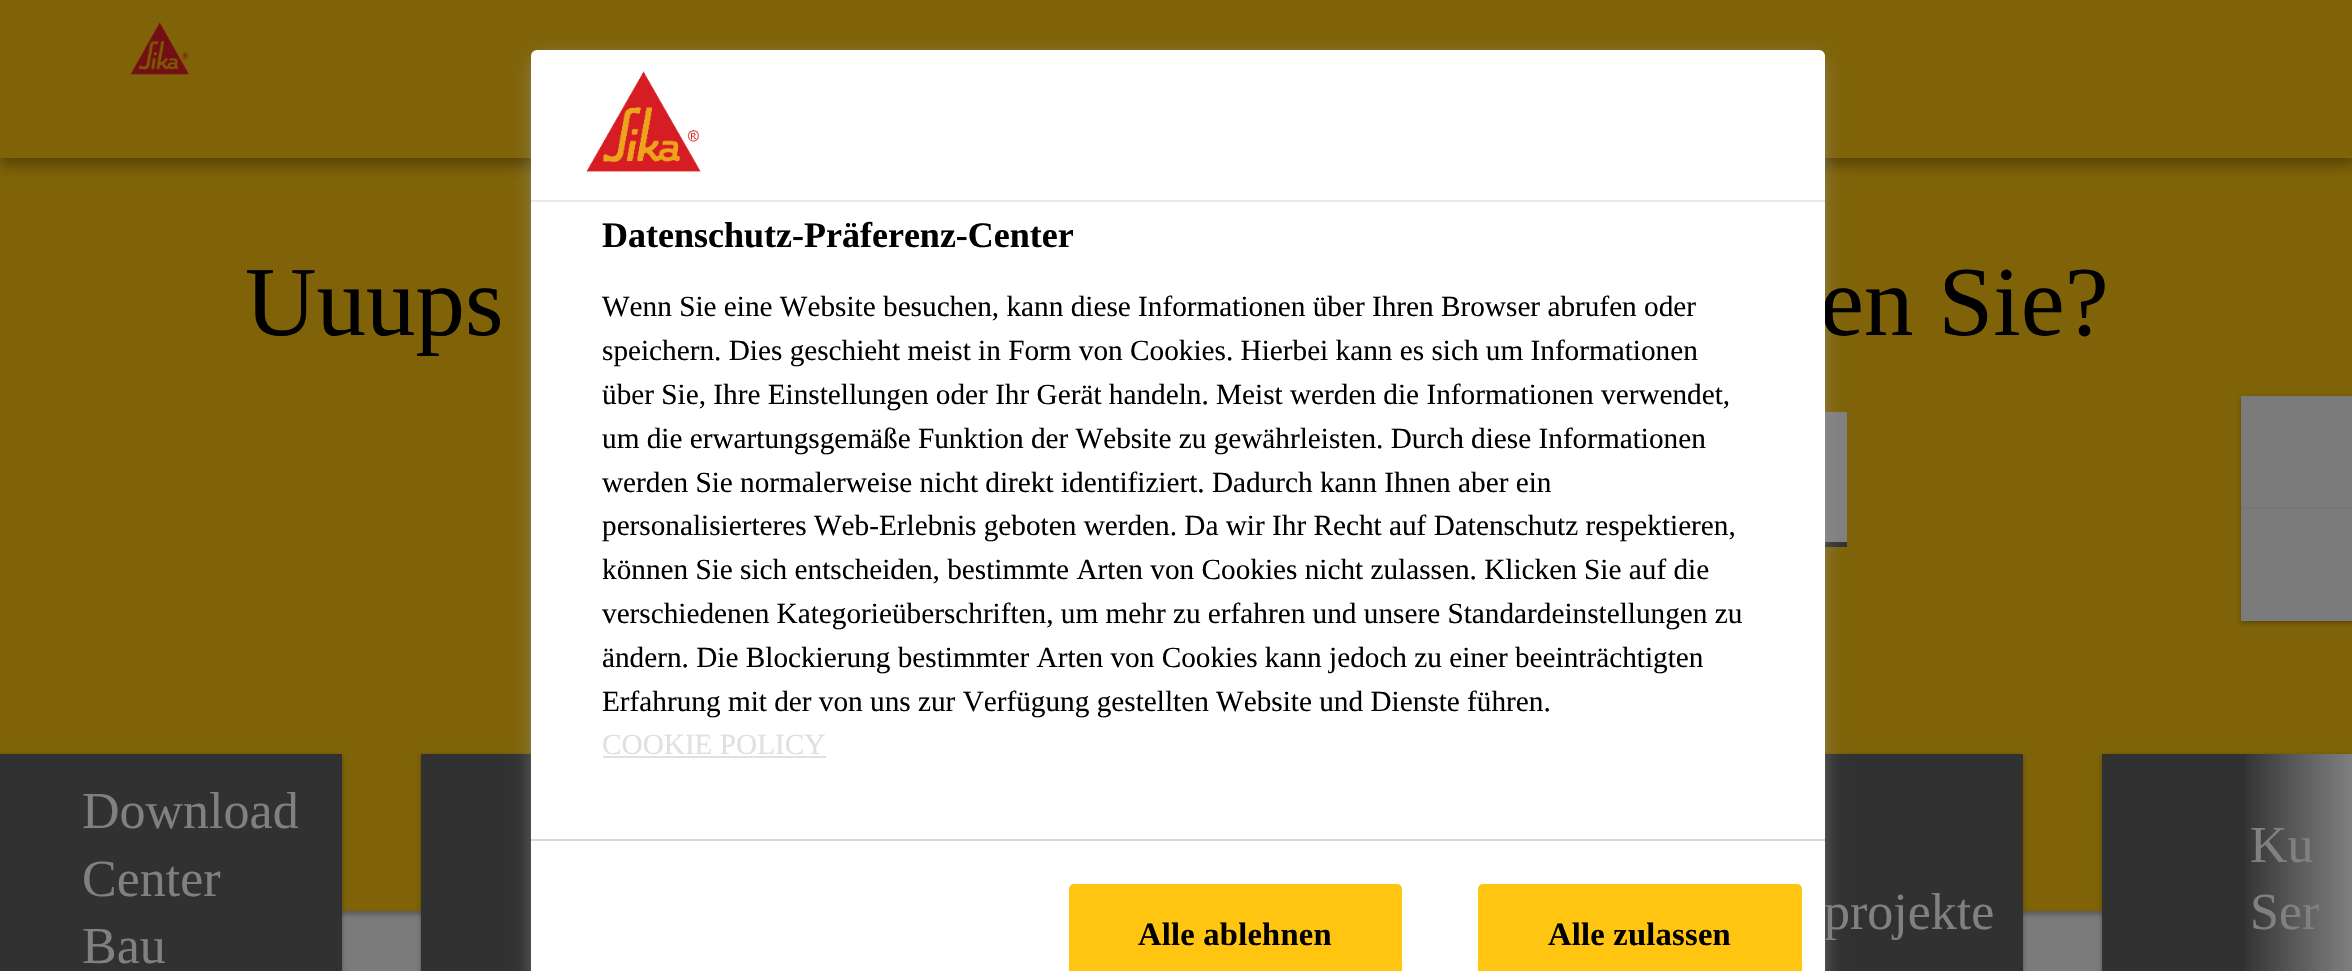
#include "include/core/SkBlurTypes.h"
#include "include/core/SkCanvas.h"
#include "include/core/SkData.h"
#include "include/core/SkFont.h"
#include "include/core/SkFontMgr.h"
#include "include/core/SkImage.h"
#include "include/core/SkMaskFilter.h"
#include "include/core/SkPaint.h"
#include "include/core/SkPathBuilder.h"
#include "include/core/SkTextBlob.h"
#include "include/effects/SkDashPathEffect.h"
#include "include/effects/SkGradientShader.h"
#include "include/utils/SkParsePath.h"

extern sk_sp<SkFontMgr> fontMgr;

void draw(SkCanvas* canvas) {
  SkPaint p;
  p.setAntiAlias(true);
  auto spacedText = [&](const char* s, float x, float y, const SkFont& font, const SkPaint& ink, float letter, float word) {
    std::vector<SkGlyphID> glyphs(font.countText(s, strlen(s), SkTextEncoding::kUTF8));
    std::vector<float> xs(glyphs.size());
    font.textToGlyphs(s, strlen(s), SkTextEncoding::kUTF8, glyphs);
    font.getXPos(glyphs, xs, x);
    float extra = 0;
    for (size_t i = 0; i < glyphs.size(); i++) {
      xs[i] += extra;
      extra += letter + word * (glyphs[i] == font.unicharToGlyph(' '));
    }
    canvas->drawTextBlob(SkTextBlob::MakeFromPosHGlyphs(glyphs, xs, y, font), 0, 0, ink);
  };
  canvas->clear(SkColorSetRGB(123, 123, 123));
  p.setColor(SkColorSetARGB(26, 0, 0, 0));
  p.setMaskFilter(SkMaskFilter::MakeBlur(kNormal_SkBlurStyle, 3.5f));
  canvas->drawRect(SkRect::MakeLTRB(0, 160, 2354, 914), p);
  p.setMaskFilter(nullptr);
  p.setColor(SkColorSetARGB(51, 0, 0, 0));
  p.setMaskFilter(SkMaskFilter::MakeBlur(kNormal_SkBlurStyle, 2));
  canvas->drawRect(SkRect::MakeLTRB(0, 160, 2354, 914), p);
  p.setMaskFilter(nullptr);
  p.setColor(SkColorSetRGB(128, 99, 8));
  canvas->drawRect(SkRect::MakeLTRB(0, 158, 2352, 911), p);
  p.setColor(SkColorSetARGB(59, 0, 0, 0));
  p.setMaskFilter(SkMaskFilter::MakeBlur(kNormal_SkBlurStyle, 7));
  canvas->drawRect(SkRect::MakeLTRB(0, 7, 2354, 164), p);
  p.setMaskFilter(nullptr);
  p.setColor(SkColorSetARGB(41, 0, 0, 0));
  p.setMaskFilter(SkMaskFilter::MakeBlur(kNormal_SkBlurStyle, 7));
  canvas->drawRect(SkRect::MakeLTRB(0, 7, 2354, 164), p);
  p.setMaskFilter(nullptr);
  p.setColor(SkColorSetRGB(128, 99, 8));
  canvas->drawRect(SkRect::MakeLTRB(0, 0, 2352, 158), p);
  p.setColor(SkColorSetRGB(128, 128, 128));
  canvas->drawRect(SkRect::MakeLTRB(1825, 412, 1847, 542), p);
  p.setColor(SkColorSetRGB(49, 49, 49));
  canvas->drawRect(SkRect::MakeLTRB(1825, 542, 1847, 547), p);
  p.setColor(SkColorSetARGB(26, 0, 0, 0));
  p.setMaskFilter(SkMaskFilter::MakeBlur(kNormal_SkBlurStyle, 3.5f));
  canvas->drawRect(SkRect::MakeLTRB(421, 756, 830, 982), p);
  p.setMaskFilter(nullptr);
  p.setColor(SkColorSetARGB(51, 0, 0, 0));
  p.setMaskFilter(SkMaskFilter::MakeBlur(kNormal_SkBlurStyle, 2));
  canvas->drawRect(SkRect::MakeLTRB(421, 756, 830, 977), p);
  p.setMaskFilter(nullptr);
  p.setColor(SkColorSetRGB(49, 49, 49));
  canvas->drawRect(SkRect::MakeLTRB(421, 754, 531, 971), p);
  p.setColor(SkColorSetARGB(26, 0, 0, 0));
  p.setMaskFilter(SkMaskFilter::MakeBlur(kNormal_SkBlurStyle, 3.5f));
  canvas->drawRect(SkRect::MakeLTRB(1505, 756, 2023, 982), p);
  p.setMaskFilter(nullptr);
  p.setColor(SkColorSetARGB(51, 0, 0, 0));
  p.setMaskFilter(SkMaskFilter::MakeBlur(kNormal_SkBlurStyle, 2));
  canvas->drawRect(SkRect::MakeLTRB(1505, 756, 2023, 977), p);
  p.setMaskFilter(nullptr);
  p.setColor(SkColorSetRGB(49, 49, 49));
  canvas->drawRect(SkRect::MakeLTRB(1825, 754, 2023, 971), p);
  p.setColor(SkColorSetRGB(153, 153, 153));
  p.setMaskFilter(SkMaskFilter::MakeBlur(kNormal_SkBlurStyle, 11));
  canvas->drawRect(SkRect::MakeLTRB(538, 61, 1818, 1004), p);
  p.setMaskFilter(nullptr);
  canvas->drawImageRect(SkImages::DeferredFromEncodedData(SkData::MakeFromFileName("images/2.png")), SkRect::MakeLTRB(130, 22, 189, 75), SkSamplingOptions());
  p.setColor(SkColorSetARGB(26, 0, 0, 0));
  p.setMaskFilter(SkMaskFilter::MakeBlur(kNormal_SkBlurStyle, 3.5f));
  canvas->drawRect(SkRect::MakeLTRB(2241, 398, 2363, 511), p);
  p.setMaskFilter(nullptr);
  p.setColor(SkColorSetARGB(51, 0, 0, 0));
  p.setMaskFilter(SkMaskFilter::MakeBlur(kNormal_SkBlurStyle, 2));
  canvas->drawRect(SkRect::MakeLTRB(2241, 398, 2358, 511), p);
  p.setMaskFilter(nullptr);
  p.setColor(SkColorSetRGB(123, 123, 123));
  canvas->drawRect(SkRect::MakeLTRB(2241, 396, 2352, 509), p);
  p.setColor(SkColorSetARGB(26, 0, 0, 0));
  p.setMaskFilter(SkMaskFilter::MakeBlur(kNormal_SkBlurStyle, 3.5f));
  canvas->drawRect(SkRect::MakeLTRB(2241, 511, 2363, 623), p);
  p.setMaskFilter(nullptr);
  p.setColor(SkColorSetARGB(51, 0, 0, 0));
  p.setMaskFilter(SkMaskFilter::MakeBlur(kNormal_SkBlurStyle, 2));
  canvas->drawRect(SkRect::MakeLTRB(2241, 511, 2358, 623), p);
  p.setMaskFilter(nullptr);
  p.setColor(SkColorSetRGB(123, 123, 123));
  canvas->drawRect(SkRect::MakeLTRB(2241, 509, 2352, 621), p);
  p.setColor(SkColorSetARGB(26, 0, 0, 0));
  p.setMaskFilter(SkMaskFilter::MakeBlur(kNormal_SkBlurStyle, 3.5f));
  canvas->drawRect(SkRect::MakeLTRB(-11, 756, 342, 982), p);
  p.setMaskFilter(nullptr);
  p.setColor(SkColorSetARGB(51, 0, 0, 0));
  p.setMaskFilter(SkMaskFilter::MakeBlur(kNormal_SkBlurStyle, 2));
  canvas->drawRect(SkRect::MakeLTRB(-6, 756, 342, 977), p);
  p.setMaskFilter(nullptr);
  p.setColor(SkColorSetRGB(49, 49, 49));
  canvas->drawRect(SkRect::MakeLTRB(0, 754, 342, 971), p);
  p.setColor(SkColorSetARGB(26, 0, 0, 0));
  p.setMaskFilter(SkMaskFilter::MakeBlur(kNormal_SkBlurStyle, 3.5f));
  canvas->drawRect(SkRect::MakeLTRB(2102, 756, 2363, 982), p);
  p.setMaskFilter(nullptr);
  p.setColor(SkColorSetARGB(51, 0, 0, 0));
  p.setMaskFilter(SkMaskFilter::MakeBlur(kNormal_SkBlurStyle, 2));
  canvas->drawRect(SkRect::MakeLTRB(2102, 756, 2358, 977), p);
  p.setMaskFilter(nullptr);
  p.setColor(SkColorSetRGB(49, 49, 49));
  canvas->drawRect(SkRect::MakeLTRB(2102, 754, 2352, 971), p);
  SkFont font1(fontMgr->matchFamilyStyle("Liberation Serif", SkFontStyle::Normal()), 99);
  font1.setSubpixel(true);
  p.setColor(SK_ColorBLACK);
  canvas->drawString("Uuups", 245, 335, font1, p);
  canvas->drawString("en Sie?", 1820, 335, font1, p);
  p.setColor(SK_ColorWHITE);
  canvas->drawRoundRect(SkRect::MakeLTRB(531, 50, 1825, 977), 6, 6, p);
  p.setColor(SkColorSetRGB(255, 197, 16));
  canvas->drawRoundRect(SkRect::MakeLTRB(1479, 885, 1801, 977), 4, 4, p);
  p.setStyle(SkPaint::kStroke_Style);
  p.setStrokeWidth(2);
  canvas->drawRoundRect(SkRect::MakeLTRB(1479, 885, 1801, 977), 4, 4, p);
  SkFont font2(fontMgr->matchFamilyStyle("Liberation Serif", SkFontStyle::Bold()), 32.5f);
  font2.setSubpixel(true);
  p.setStyle(SkPaint::kFill_Style);
  p.setColor(SK_ColorBLACK);
  spacedText("Alle zulassen", 1548, 945, font2, p, 0.25f, 0);
  p.setColor(SkColorSetRGB(255, 197, 16));
  canvas->drawRoundRect(SkRect::MakeLTRB(1070, 885, 1401, 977), 4, 4, p);
  p.setStyle(SkPaint::kStroke_Style);
  canvas->drawRoundRect(SkRect::MakeLTRB(1070, 885, 1401, 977), 4, 4, p);
  p.setStyle(SkPaint::kFill_Style);
  p.setColor(SK_ColorBLACK);
  spacedText("Alle ablehnen", 1138, 945, font2, p, 0.25f, 0);
  p.setColor(SkColorSetRGB(216, 216, 216));
  canvas->drawRect(SkRect::MakeLTRB(531, 839, 1825, 841), p);
  SkFont font3(fontMgr->matchFamilyStyle("Liberation Serif", SkFontStyle::Normal()), 29.25f);
  font3.setSubpixel(true);
  p.setColor(SkColorSetRGB(224, 224, 224));
  canvas->drawString("COOKIE POLICY", 602, 754, font3, p);
  canvas->drawRect(SkRect::MakeLTRB(603, 756, 826, 758), p);
  p.setColor(SK_ColorBLACK);
  canvas->drawString("Erfahrung mit der von uns zur Verfügung gestellten Website und Dienste führen.", 602, 711, font3, p);
  canvas->drawString("ändern. Die Blockierung bestimmter Arten von Cookies kann jedoch zu einer beeinträchtigten", 602, 667, font3, p);
  canvas->drawString("verschiedenen Kategorieüberschriften, um mehr zu erfahren und unsere Standardeinstellungen zu", 602, 623, font3, p);
  canvas->drawString("können Sie sich entscheiden, bestimmte Arten von Cookies nicht zulassen. Klicken Sie auf die", 602, 579, font3, p);
  canvas->drawString("personalisierteres Web-Erlebnis geboten werden. Da wir Ihr Recht auf Datenschutz respektieren,", 602, 535, font3, p);
  canvas->drawString("werden Sie normalerweise nicht direkt identifiziert. Dadurch kann Ihnen aber ein", 602, 492, font3, p);
  canvas->drawString("um die erwartungsgemäße Funktion der Website zu gewährleisten. Durch diese Informationen", 602, 448, font3, p);
  canvas->drawString("über Sie, Ihre Einstellungen oder Ihr Gerät handeln. Meist werden die Informationen verwendet,", 602, 404, font3, p);
  canvas->drawString("speichern. Dies geschieht meist in Form von Cookies. Hierbei kann es sich um Informationen", 602, 360, font3, p);
  canvas->drawString("Wenn Sie eine Website besuchen, kann diese Informationen über Ihren Browser abrufen oder", 602, 316, font3, p);
  SkFont font4(fontMgr->matchFamilyStyle("Liberation Serif", SkFontStyle::Bold()), 36);
  font4.setSubpixel(true);
  canvas->drawString("Datenschutz-Präferenz-Center", 602, 247, font4, p);
  canvas->drawImageRect(SkImages::DeferredFromEncodedData(SkData::MakeFromFileName("images/1.png")), SkRect::MakeLTRB(586, 71, 701, 172), SkSamplingOptions());
  p.setColor(SkColorSetRGB(233, 233, 233));
  canvas->drawRect(SkRect::MakeLTRB(531, 200, 1825, 202), p);
  SkFont font5(fontMgr->matchFamilyStyle("Liberation Serif", SkFontStyle::Normal()), 52);
  font5.setSubpixel(true);
  p.setColor(SkColorSetRGB(128, 128, 128));
  canvas->drawString("Download", 82, 828, font5, p);
  canvas->drawString("Center", 82, 896, font5, p);
  canvas->drawString("Bau", 82, 963, font5, p);
  canvas->drawString("projekte", 1824, 929, font5, p);
  canvas->drawString("Ku", 2250, 862, font5, p);
  canvas->drawString("Ser", 2250, 929, font5, p);
  {
    const SkColor colors[] = {SkColorSetARGB(0, 128, 128, 128), SkColorSetARGB(133, 128, 128, 128), SkColorSetRGB(128, 128, 128)};
    const float stops[] = {0, 0.5f, 1};
    const SkPoint ends[] = {{2241, 878}, {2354, 878}};
    p.setShader(SkGradientShader::MakeLinear(ends, colors, stops, 3, SkTileMode::kClamp));
    p.setAlpha(255);
  }
  canvas->drawRect(SkRect::MakeLTRB(2245, 754, 2352, 971), p);
}
